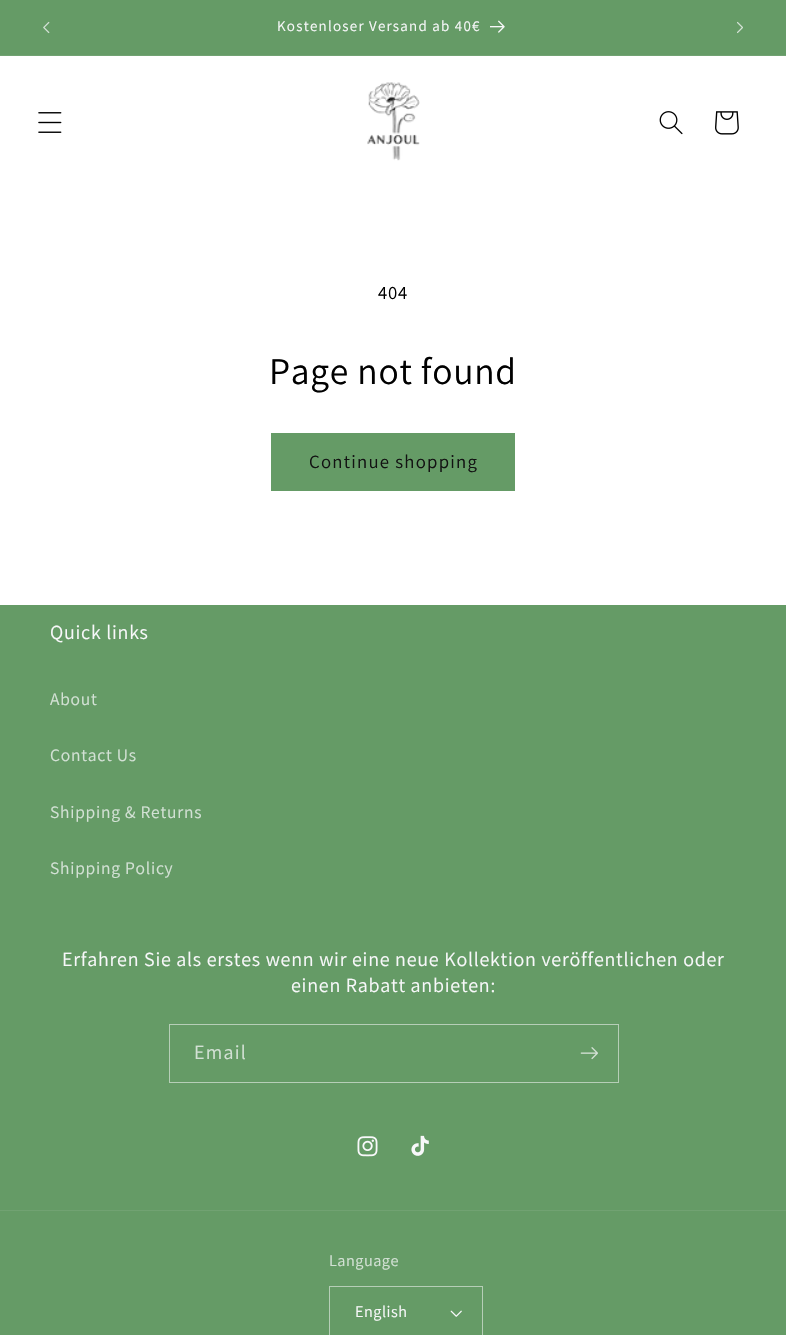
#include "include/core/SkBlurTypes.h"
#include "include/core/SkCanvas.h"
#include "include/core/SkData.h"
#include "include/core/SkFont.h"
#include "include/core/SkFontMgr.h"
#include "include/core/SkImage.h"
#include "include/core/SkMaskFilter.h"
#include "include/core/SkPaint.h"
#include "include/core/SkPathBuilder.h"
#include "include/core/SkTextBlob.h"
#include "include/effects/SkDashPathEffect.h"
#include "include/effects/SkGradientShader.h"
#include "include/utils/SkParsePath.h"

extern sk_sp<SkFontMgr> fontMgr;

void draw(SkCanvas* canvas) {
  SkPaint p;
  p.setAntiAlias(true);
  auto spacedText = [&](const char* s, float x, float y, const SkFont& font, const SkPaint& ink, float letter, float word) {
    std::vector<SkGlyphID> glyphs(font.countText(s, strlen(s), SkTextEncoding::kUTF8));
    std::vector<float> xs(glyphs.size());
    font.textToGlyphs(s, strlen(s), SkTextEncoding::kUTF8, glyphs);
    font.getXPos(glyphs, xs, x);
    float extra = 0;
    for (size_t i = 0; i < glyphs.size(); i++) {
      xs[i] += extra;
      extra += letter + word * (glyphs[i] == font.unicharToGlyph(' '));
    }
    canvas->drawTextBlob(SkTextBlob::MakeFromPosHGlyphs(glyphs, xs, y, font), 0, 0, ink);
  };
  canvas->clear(SK_ColorWHITE);
  p.setColor(SkColorSetRGB(101, 155, 102));
  canvas->drawRect(SkRect::MakeLTRB(0, 0, 786, 55), p);
  p.setColor(SkColorSetRGB(113, 162, 114));
  canvas->drawRect(SkRect::MakeLTRB(0, 55, 786, 56), p);
  canvas->drawImageRect(SkImages::DeferredFromEncodedData(SkData::MakeFromFileName("images/1.png")), SkRect::MakeLTRB(43, 21, 50, 34), SkSamplingOptions());
  canvas->drawImageRect(SkImages::DeferredFromEncodedData(SkData::MakeFromFileName("images/2.png")), SkRect::MakeLTRB(490, 20, 505, 33), SkSamplingOptions());
  canvas->drawImageRect(SkImages::DeferredFromEncodedData(SkData::MakeFromFileName("images/3.png")), SkRect::MakeLTRB(737, 21, 743, 34), SkSamplingOptions());
  canvas->drawImageRect(SkImages::DeferredFromEncodedData(SkData::MakeFromFileName("images/4.png")), SkRect::MakeLTRB(38, 112, 62, 133), SkSamplingOptions());
  canvas->drawImageRect(SkImages::DeferredFromEncodedData(SkData::MakeFromFileName("images/5.png")), SkRect::MakeLTRB(367, 82, 420, 161), SkSamplingOptions());
  canvas->drawImageRect(SkImages::DeferredFromEncodedData(SkData::MakeFromFileName("images/6.png")), SkRect::MakeLTRB(659, 111, 683, 135), SkSamplingOptions());
  canvas->drawImageRect(SkImages::DeferredFromEncodedData(SkData::MakeFromFileName("images/7.png")), SkRect::MakeLTRB(715, 111, 739, 135), SkSamplingOptions());
  p.setColor(SkColorSetRGB(101, 155, 102));
  canvas->drawRect(SkRect::MakeLTRB(271, 433, 515, 491), p);
  canvas->drawRect(SkRect::MakeLTRB(0, 605, 786, 1335), p);
  p.setStyle(SkPaint::kStroke_Style);
  p.setStrokeWidth(1);
  p.setColor(SkColorSetRGB(182, 206, 183));
  canvas->drawRect(SkRect::MakeLTRB(169.5f, 1024.5f, 618.5f, 1082.5f), p);
  canvas->drawImageRect(SkImages::DeferredFromEncodedData(SkData::MakeFromFileName("images/8.png")), SkRect::MakeLTRB(580, 1047, 598, 1060), SkSamplingOptions());
  canvas->drawImageRect(SkImages::DeferredFromEncodedData(SkData::MakeFromFileName("images/9.png")), SkRect::MakeLTRB(357, 1136, 378, 1157), SkSamplingOptions());
  canvas->drawImageRect(SkImages::DeferredFromEncodedData(SkData::MakeFromFileName("images/10.png")), SkRect::MakeLTRB(411, 1135, 429, 1156), SkSamplingOptions());
  p.setStyle(SkPaint::kFill_Style);
  p.setColor(SkColorSetRGB(113, 162, 114));
  canvas->drawRect(SkRect::MakeLTRB(0, 1210, 786, 1211), p);
  canvas->drawImageRect(SkImages::DeferredFromEncodedData(SkData::MakeFromFileName("images/11.png")), SkRect::MakeLTRB(450, 1310, 462, 1317), SkSamplingOptions());
  p.setStyle(SkPaint::kStroke_Style);
  p.setColor(SkColorSetRGB(182, 206, 183));
  canvas->drawRect(SkRect::MakeLTRB(329.5f, 1286.5f, 482.5f, 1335.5f), p);
  SkFont font1(fontMgr->matchFamilyStyle("Assistant", SkFontStyle::Normal()), 15);
  font1.setSubpixel(true);
  p.setStyle(SkPaint::kFill_Style);
  p.setColor(SkColorSetRGB(248, 248, 250));
  spacedText("Kostenloser Versand ab 40€", 277, 31, font1, p, 1.25f, 0);
  SkFont font2(fontMgr->matchFamilyStyle("Assistant", SkFontStyle::Normal()), 18.75f);
  font2.setSubpixel(true);
  p.setColor(SK_ColorBLACK);
  spacedText("404", 378, 299, font2, p, 0.75f, 0);
  SkFont font3(fontMgr->matchFamilyStyle("Assistant", SkFontStyle::Normal()), 37.5f);
  font3.setSubpixel(true);
  spacedText("Page not found", 269, 384, font3, p, 0.75f, 0);
  p.setColor(SkColorSetRGB(18, 18, 18));
  spacedText("Continue shopping", 309, 468, font2, p, 1.25f, 0);
  SkFont font4(fontMgr->matchFamilyStyle("Assistant", SkFontStyle::Normal()), 20);
  font4.setSubpixel(true);
  p.setColor(SkColorSetRGB(248, 248, 250));
  spacedText("Quick links", 50, 639, font4, p, 0.75f, 0);
  SkFont font5(fontMgr->matchFamilyStyle("Assistant", SkFontStyle::Normal()), 17.5f);
  font5.setSubpixel(true);
  p.setColor(SkColorSetRGB(211, 225, 213));
  spacedText("About", 50, 705, font5, p, 0.75f, 0);
  spacedText("Contact Us", 50, 761, font5, p, 0.75f, 0);
  spacedText("Shipping & Returns", 50, 818, font5, p, 0.75f, 0);
  spacedText("Shipping Policy", 50, 874, font5, p, 0.75f, 0);
  p.setColor(SkColorSetRGB(248, 248, 250));
  spacedText("Erfahren Sie als erstes wenn wir eine neue Kollektion veröffentlichen oder", 62, 966, font4, p, 0.75f, 0);
  spacedText("einen Rabatt anbieten:", 291, 992, font4, p, 0.75f, 0);
  p.setColor(SkColorSetRGB(211, 225, 213));
  spacedText("Email", 194, 1059, font4, p, 1.25f, 0);
  SkFont font6(fontMgr->matchFamilyStyle("Assistant", SkFontStyle::Normal()), 16.25f);
  font6.setSubpixel(true);
  spacedText("Language", 329, 1266, font6, p, 0.5f, 0);
  p.setColor(SkColorSetRGB(248, 248, 250));
  spacedText("English", 355, 1317, font6, p, 0.5f, 0);
}
